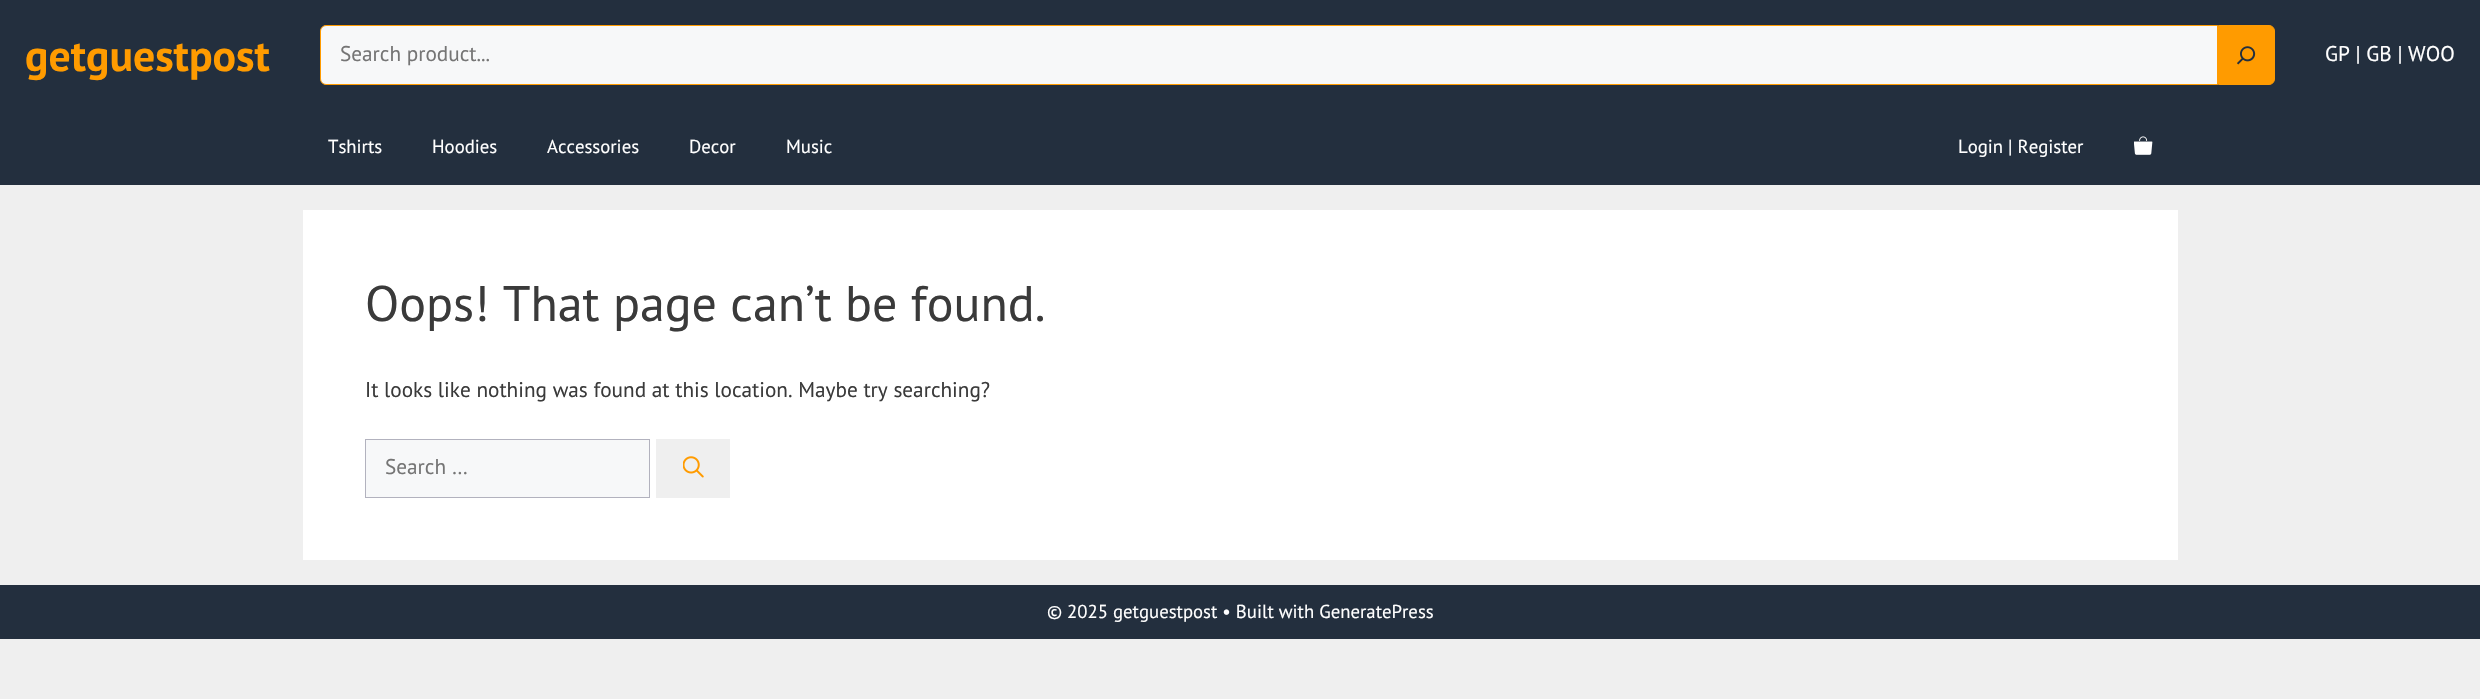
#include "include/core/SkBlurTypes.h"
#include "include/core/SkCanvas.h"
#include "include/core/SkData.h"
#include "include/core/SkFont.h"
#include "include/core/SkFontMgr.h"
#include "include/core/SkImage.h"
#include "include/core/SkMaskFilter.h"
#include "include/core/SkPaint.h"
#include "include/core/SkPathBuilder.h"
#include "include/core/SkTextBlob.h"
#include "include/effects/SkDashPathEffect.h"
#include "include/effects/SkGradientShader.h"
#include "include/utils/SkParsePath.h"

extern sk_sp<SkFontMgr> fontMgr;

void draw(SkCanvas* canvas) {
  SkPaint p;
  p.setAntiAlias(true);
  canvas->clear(SkColorSetRGB(239, 239, 239));
  p.setColor(SkColorSetRGB(35, 47, 62));
  canvas->drawRect(SkRect::MakeLTRB(0, 0, 2480, 185), p);
  p.setColor(SkColorSetRGB(247, 248, 249));
  canvas->drawPath(SkPathBuilder().moveTo(326, 25.5f).lineTo(2217.5f, 25.5f).lineTo(2217.5f, 84.5f).lineTo(326, 84.5f).cubicTo(323, 84.5f, 320.5f, 82, 320.5f, 79).lineTo(320.5f, 31).cubicTo(320.5f, 28, 323, 25.5f, 326, 25.5f).close().detach(), p);
  p.setStyle(SkPaint::kStroke_Style);
  p.setStrokeWidth(1);
  p.setColor(SkColorSetRGB(255, 155, 0));
  canvas->drawPath(SkPathBuilder().moveTo(326, 25.5f).lineTo(2217.5f, 25.5f).lineTo(2217.5f, 84.5f).lineTo(326, 84.5f).cubicTo(323, 84.5f, 320.5f, 82, 320.5f, 79).lineTo(320.5f, 31).cubicTo(320.5f, 28, 323, 25.5f, 326, 25.5f).close().detach(), p);
  p.setStyle(SkPaint::kFill_Style);
  canvas->drawPath(SkPathBuilder().moveTo(2218.5f, 25.5f).lineTo(2269, 25.5f).cubicTo(2272, 25.5f, 2274.5f, 28, 2274.5f, 31).lineTo(2274.5f, 79).cubicTo(2274.5f, 82, 2272, 84.5f, 2269, 84.5f).lineTo(2218.5f, 84.5f).close().detach(), p);
  p.setStyle(SkPaint::kStroke_Style);
  canvas->drawPath(SkPathBuilder().moveTo(2218.5f, 25.5f).lineTo(2269, 25.5f).cubicTo(2272, 25.5f, 2274.5f, 28, 2274.5f, 31).lineTo(2274.5f, 79).cubicTo(2274.5f, 82, 2272, 84.5f, 2269, 84.5f).lineTo(2218.5f, 84.5f).close().detach(), p);
  canvas->drawImageRect(SkImages::DeferredFromEncodedData(SkData::MakeFromFileName("images/1.png")), SkRect::MakeLTRB(2237, 46, 2256, 65), SkSamplingOptions());
  canvas->drawImageRect(SkImages::DeferredFromEncodedData(SkData::MakeFromFileName("images/2.png")), SkRect::MakeLTRB(2134, 136, 2153, 155), SkSamplingOptions());
  p.setStyle(SkPaint::kFill_Style);
  p.setColor(SK_ColorWHITE);
  canvas->drawRect(SkRect::MakeLTRB(303, 210, 2178, 560), p);
  p.setColor(SkColorSetRGB(247, 248, 249));
  canvas->drawRect(SkRect::MakeLTRB(365.5f, 439.5f, 649.5f, 497.5f), p);
  p.setStyle(SkPaint::kStroke_Style);
  p.setColor(SkColorSetRGB(178, 178, 190));
  canvas->drawRect(SkRect::MakeLTRB(365.5f, 439.5f, 649.5f, 497.5f), p);
  p.setStyle(SkPaint::kFill_Style);
  p.setColor(SkColorSetRGB(239, 239, 239));
  canvas->drawRect(SkRect::MakeLTRB(656, 439, 730, 498), p);
  canvas->drawImageRect(SkImages::DeferredFromEncodedData(SkData::MakeFromFileName("images/3.png")), SkRect::MakeLTRB(683, 456, 704, 478), SkSamplingOptions());
  p.setColor(SkColorSetRGB(35, 47, 62));
  canvas->drawRect(SkRect::MakeLTRB(0, 585, 2480, 639), p);
  SkFont font1(fontMgr->matchFamilyStyle("PT Sans", SkFontStyle::Bold()), 43.75f);
  font1.setSubpixel(true);
  p.setColor(SkColorSetRGB(255, 155, 0));
  canvas->drawString("getguestpost", 25, 71, font1, p);
  SkFont font2(fontMgr->matchFamilyStyle("PT Sans", SkFontStyle::Normal()), 21.25f);
  font2.setSubpixel(true);
  p.setColor(SkColorSetRGB(117, 117, 117));
  canvas->drawString("Search product...", 340, 61, font2, p);
  p.setColor(SK_ColorWHITE);
  canvas->drawString("GP | GB | WOO", 2325, 61, font2, p);
  SkFont font3(fontMgr->matchFamilyStyle("PT Sans", SkFontStyle::Normal()), 18.75f);
  font3.setSubpixel(true);
  canvas->drawString("Tshirts", 328, 153, font3, p);
  canvas->drawString("Hoodies", 432, 153, font3, p);
  canvas->drawString("Accessories", 547, 153, font3, p);
  canvas->drawString("Decor", 689, 153, font3, p);
  canvas->drawString("Music", 786, 153, font3, p);
  canvas->drawString("Login | Register", 1958, 153, font3, p);
  SkFont font4(fontMgr->matchFamilyStyle("PT Sans", SkFontStyle::Normal()), 50);
  font4.setSubpixel(true);
  p.setColor(SkColorSetRGB(58, 58, 58));
  canvas->drawString("Oops! That page can’t be found.", 365, 321, font4, p);
  canvas->drawString("It looks like nothing was found at this location. Maybe try searching?", 365, 397, font2, p);
  p.setColor(SkColorSetRGB(117, 117, 117));
  canvas->drawString("Search …", 385, 474, font2, p);
  p.setColor(SK_ColorWHITE);
  canvas->drawString("© 2025 getguestpost • Built with GeneratePress", 1047, 618, font3, p);
}
